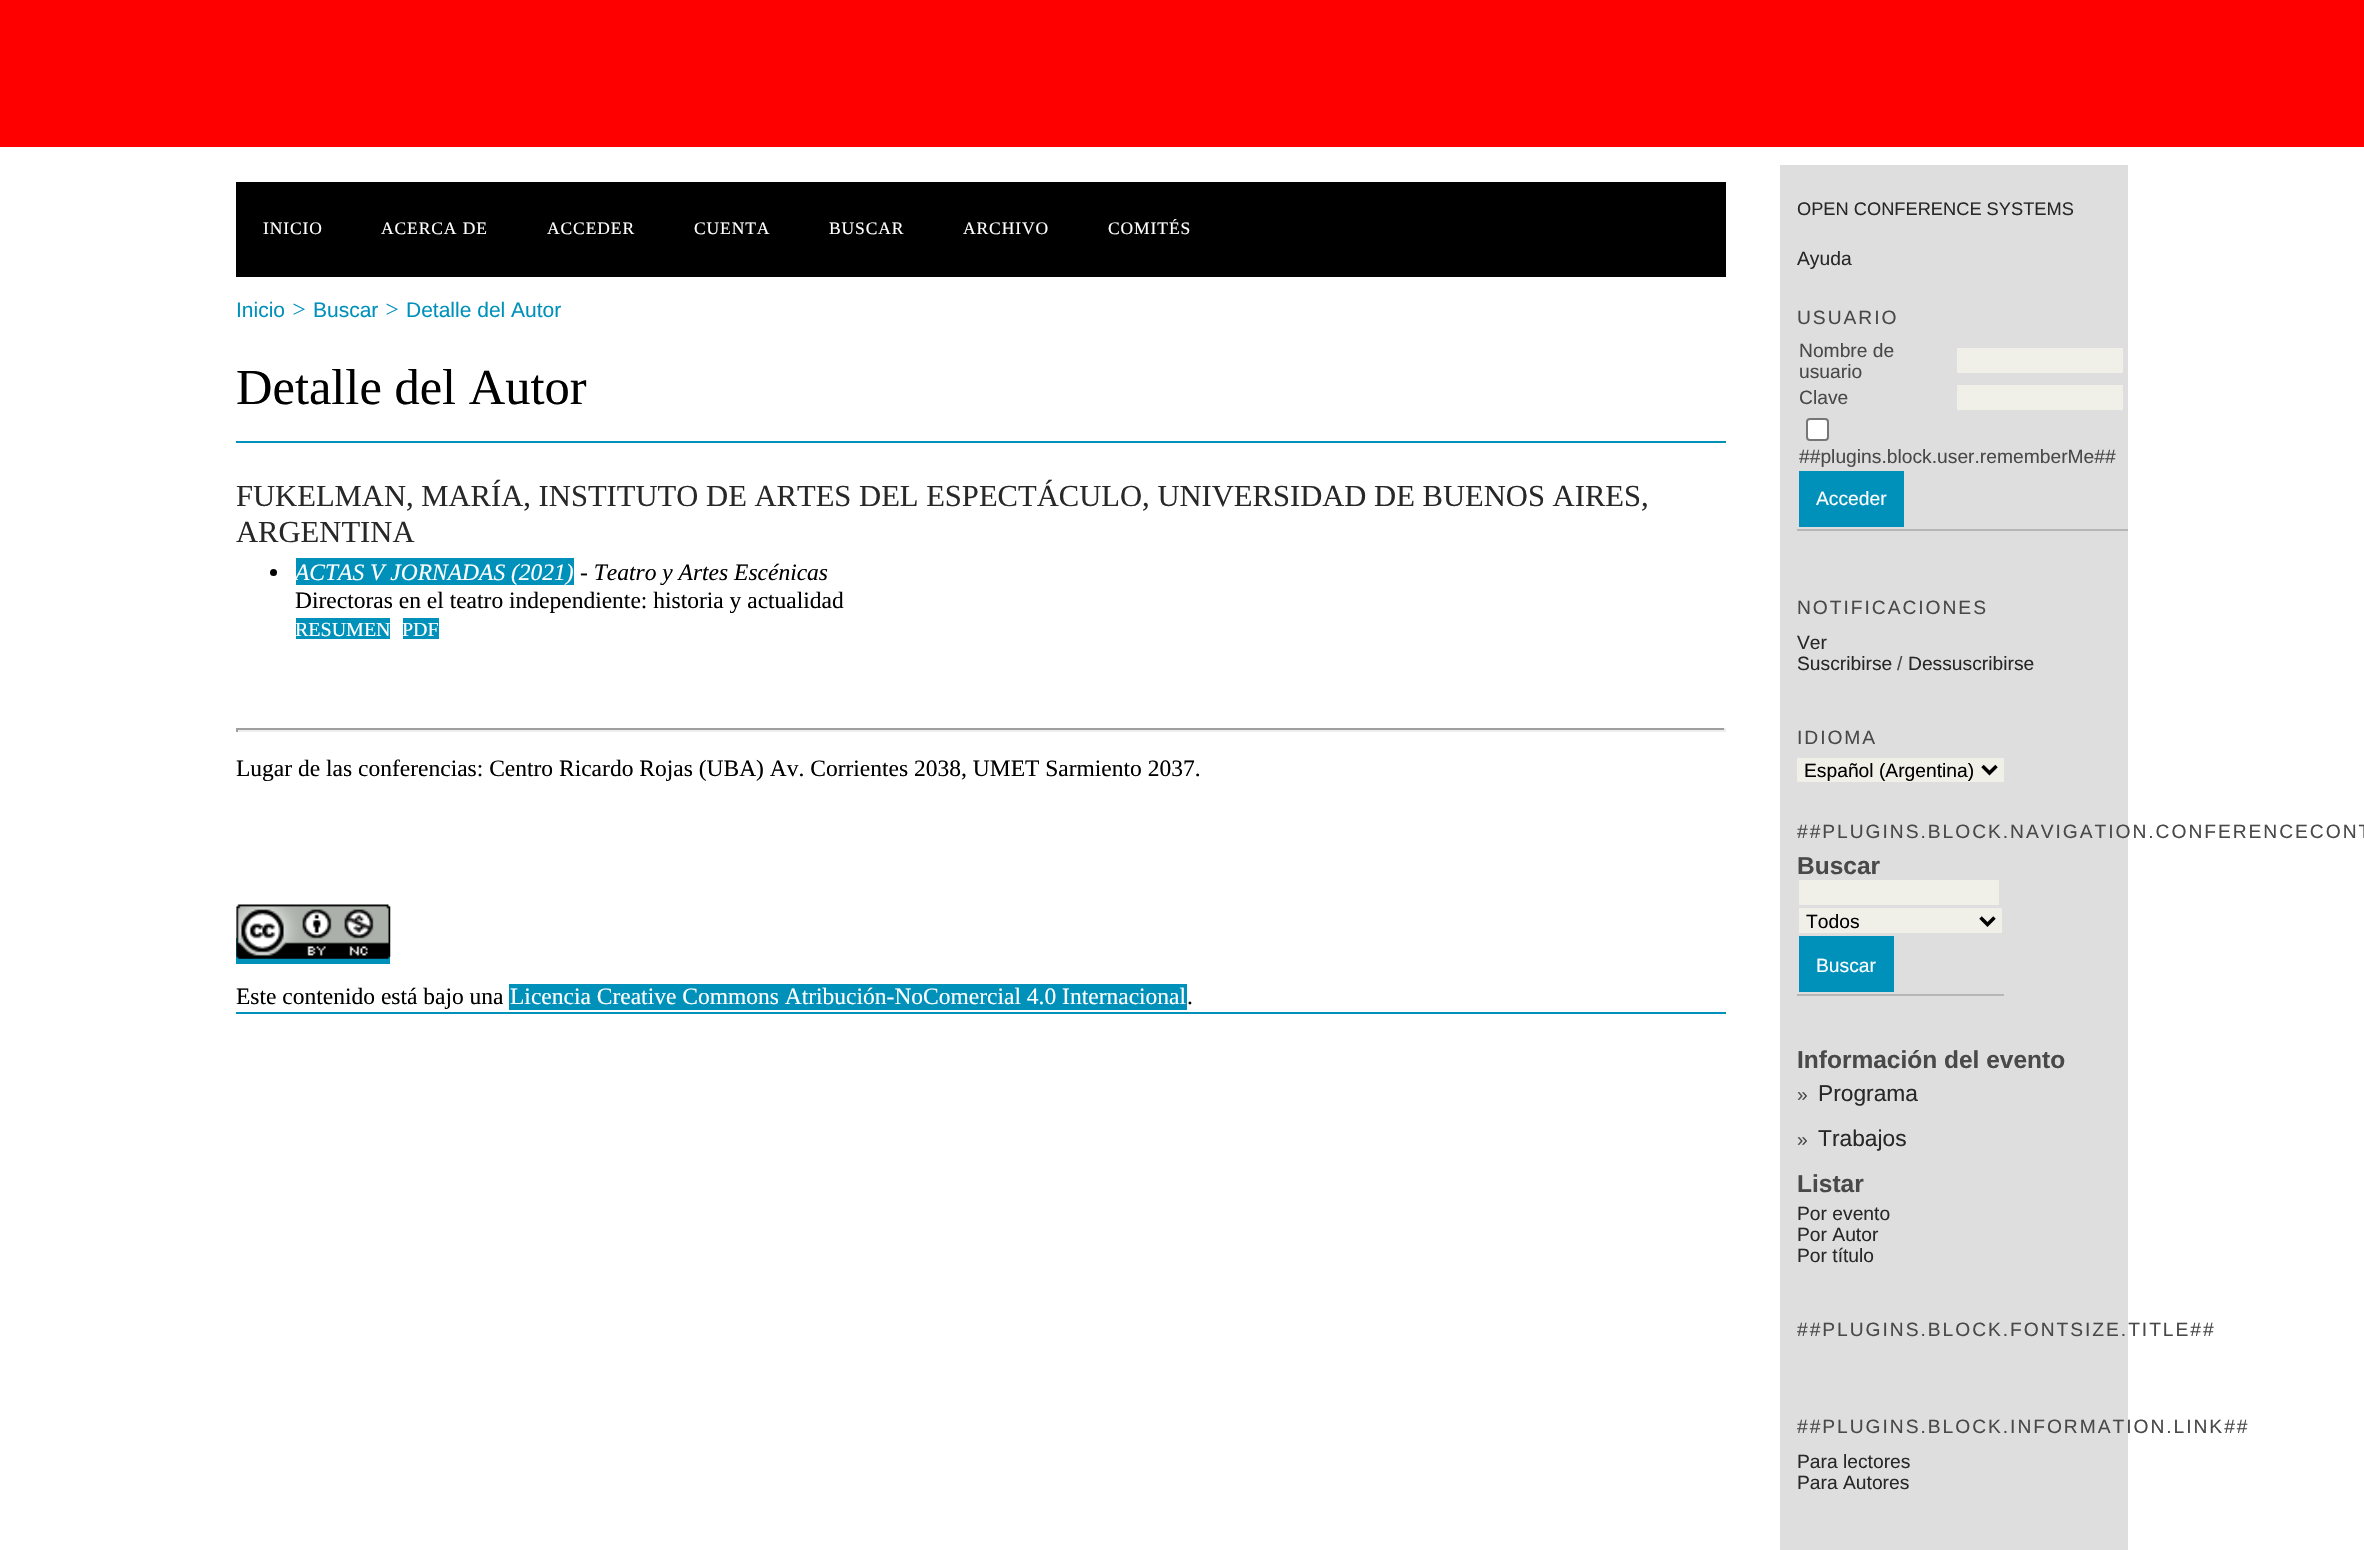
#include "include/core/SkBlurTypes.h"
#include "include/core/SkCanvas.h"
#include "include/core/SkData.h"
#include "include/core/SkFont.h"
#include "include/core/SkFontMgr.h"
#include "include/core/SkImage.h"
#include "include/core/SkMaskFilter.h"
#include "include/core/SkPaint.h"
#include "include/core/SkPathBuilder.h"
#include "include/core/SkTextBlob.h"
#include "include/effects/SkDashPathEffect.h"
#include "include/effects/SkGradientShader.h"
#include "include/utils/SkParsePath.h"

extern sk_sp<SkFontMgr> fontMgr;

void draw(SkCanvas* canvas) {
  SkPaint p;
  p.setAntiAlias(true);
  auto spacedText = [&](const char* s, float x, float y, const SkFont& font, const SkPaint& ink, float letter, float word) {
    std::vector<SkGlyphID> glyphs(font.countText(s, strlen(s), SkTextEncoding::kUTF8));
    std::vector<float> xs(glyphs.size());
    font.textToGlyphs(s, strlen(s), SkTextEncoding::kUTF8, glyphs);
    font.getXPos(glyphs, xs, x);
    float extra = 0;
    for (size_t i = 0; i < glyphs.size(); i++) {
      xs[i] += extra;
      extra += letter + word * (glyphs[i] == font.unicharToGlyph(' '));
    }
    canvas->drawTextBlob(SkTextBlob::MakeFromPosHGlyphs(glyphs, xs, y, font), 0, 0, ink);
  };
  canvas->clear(SK_ColorWHITE);
  p.setColor(SkColorSetRGB(255, 0, 0));
  canvas->drawRect(SkRect::MakeLTRB(0, 0, 2364, 147), p);
  p.setColor(SK_ColorBLACK);
  canvas->drawRect(SkRect::MakeLTRB(236, 182, 1726, 277), p);
  p.setColor(SkColorSetRGB(0, 145, 187));
  canvas->drawRect(SkRect::MakeLTRB(236, 441, 1726, 443), p);
  canvas->drawRect(SkRect::MakeLTRB(236, 1012, 1726, 1014), p);
  p.setColor(SK_ColorBLACK);
  canvas->drawCircle(273.5f, 572.5f, 3.5f, p);
  p.setColor(SkColorSetRGB(0, 145, 187));
  canvas->drawRect(SkRect::MakeLTRB(296, 558, 574, 585), p);
  canvas->drawRect(SkRect::MakeLTRB(296, 618, 390, 639), p);
  canvas->drawRect(SkRect::MakeLTRB(403, 618, 439, 639), p);
  p.setColor(SkColorSetRGB(159, 159, 159));
  canvas->drawRect(SkRect::MakeLTRB(236, 728, 1726, 730), p);
  p.setColor(SkColorSetRGB(238, 238, 238));
  canvas->drawRect(SkRect::MakeLTRB(1724, 728, 1726, 732), p);
  canvas->drawRect(SkRect::MakeLTRB(236, 730, 1726, 732), p);
  p.setColor(SkColorSetRGB(159, 159, 159));
  canvas->drawRect(SkRect::MakeLTRB(236, 728, 238, 732), p);
  p.setColor(SkColorSetRGB(0, 145, 187));
  canvas->drawRect(SkRect::MakeLTRB(236, 938, 390, 964), p);
  canvas->drawImageRect(SkImages::DeferredFromEncodedData(SkData::MakeFromFileName("images/1.png")), SkRect::MakeLTRB(236, 904, 391, 959), SkSamplingOptions());
  canvas->drawRect(SkRect::MakeLTRB(509, 984, 1187, 1010), p);
  p.setColor(SkColorSetRGB(222, 222, 222));
  canvas->drawRect(SkRect::MakeLTRB(1780, 165, 2128, 1550), p);
  p.setColor(SkColorSetRGB(182, 182, 182));
  canvas->drawRect(SkRect::MakeLTRB(1797, 529, 2128, 531), p);
  p.setColor(SkColorSetRGB(240, 240, 232));
  canvas->drawRect(SkRect::MakeLTRB(1957, 348, 2123, 373), p);
  canvas->drawRect(SkRect::MakeLTRB(1957, 385, 2123, 410), p);
  p.setColor(SK_ColorWHITE);
  canvas->drawRoundRect(SkRect::MakeLTRB(1807, 419, 1828, 440), 3, 3, p);
  p.setStyle(SkPaint::kStroke_Style);
  p.setStrokeWidth(2);
  p.setColor(SkColorSetRGB(118, 118, 118));
  canvas->drawRoundRect(SkRect::MakeLTRB(1807, 419, 1828, 440), 3, 3, p);
  p.setStyle(SkPaint::kFill_Style);
  p.setColor(SkColorSetRGB(0, 145, 187));
  canvas->drawRect(SkRect::MakeLTRB(1799, 471, 1904, 527), p);
  p.setColor(SkColorSetRGB(240, 240, 232));
  canvas->drawRect(SkRect::MakeLTRB(1797, 758, 2004, 782), p);
  p.setStyle(SkPaint::kStroke_Style);
  p.setStrokeWidth(3.5f);
  p.setColor(SK_ColorBLACK);
  canvas->drawPath(SkPathBuilder().moveTo(1982.5f, 766).lineTo(1989.5f, 773).lineTo(1996.5f, 766).detach(), p);
  p.setStyle(SkPaint::kFill_Style);
  p.setColor(SkColorSetRGB(182, 182, 182));
  canvas->drawRect(SkRect::MakeLTRB(1797, 994, 2004, 996), p);
  p.setColor(SkColorSetRGB(240, 240, 232));
  canvas->drawRect(SkRect::MakeLTRB(1799, 880, 1999, 905), p);
  canvas->drawRect(SkRect::MakeLTRB(1799, 908, 2002, 933), p);
  p.setStyle(SkPaint::kStroke_Style);
  p.setColor(SK_ColorBLACK);
  canvas->drawPath(SkPathBuilder().moveTo(1980.5f, 917.5f).lineTo(1987.5f, 924.5f).lineTo(1994.5f, 917.5f).detach(), p);
  p.setStyle(SkPaint::kFill_Style);
  p.setColor(SkColorSetRGB(0, 145, 187));
  canvas->drawRect(SkRect::MakeLTRB(1799, 936, 1894, 992), p);
  SkFont font1(fontMgr->matchFamilyStyle("Liberation Serif", SkFontStyle::Normal()), 17.5f);
  font1.setSubpixel(true);
  p.setColor(SK_ColorWHITE);
  spacedText("INICIO", 263, 234, font1, p, 0.9f, 0);
  spacedText("ACERCA DE", 381, 234, font1, p, 0.9f, 0);
  spacedText("ACCEDER", 547, 234, font1, p, 0.9f, 0);
  spacedText("CUENTA", 694, 234, font1, p, 0.9f, 0);
  spacedText("BUSCAR", 829, 234, font1, p, 0.9f, 0);
  spacedText("ARCHIVO", 963, 234, font1, p, 0.9f, 0);
  spacedText("COMITÉS", 1108, 234, font1, p, 0.9f, 0);
  SkFont font2(fontMgr->matchFamilyStyle("Liberation Sans", SkFontStyle::Normal()), 21);
  font2.setSubpixel(true);
  p.setColor(SkColorSetRGB(0, 145, 187));
  canvas->drawString("Inicio", 236, 317, font2, p);
  SkFont font3(fontMgr->matchFamilyStyle("Liberation Serif", SkFontStyle::Italic()), 23.5f);
  font3.setSubpixel(true);
  canvas->drawString(">", 291, 317, font3, p);
  canvas->drawString("Buscar", 313, 317, font2, p);
  canvas->drawString(">", 384, 317, font3, p);
  canvas->drawString("Detalle del Autor", 406, 317, font2, p);
  SkFont font4(fontMgr->matchFamilyStyle("Liberation Serif", SkFontStyle::Normal()), 50.5f);
  font4.setSubpixel(true);
  p.setColor(SK_ColorBLACK);
  canvas->drawString("Detalle del Autor", 236, 404, font4, p);
  SkFont font5(fontMgr->matchFamilyStyle("Liberation Serif", SkFontStyle::Normal()), 30.6f);
  font5.setSubpixel(true);
  p.setColor(SkColorSetRGB(40, 40, 40));
  canvas->drawString("FUKELMAN, MARÍA, INSTITUTO DE ARTES DEL ESPECTÁCULO, UNIVERSIDAD DE BUENOS AIRES,", 236, 506, font5, p);
  canvas->drawString("ARGENTINA", 236, 542, font5, p);
  p.setColor(SK_ColorWHITE);
  canvas->drawString("ACTAS V JORNADAS (2021)", 295, 580, font3, p);
  p.setColor(SK_ColorBLACK);
  canvas->drawString("- Teatro y Artes Escénicas", 580, 580, font3, p);
  SkFont font6(fontMgr->matchFamilyStyle("Liberation Serif", SkFontStyle::Normal()), 23.5f);
  font6.setSubpixel(true);
  canvas->drawString("Directoras en el teatro independiente: historia y actualidad", 295, 608, font6, p);
  SkFont font7(fontMgr->matchFamilyStyle("Liberation Serif", SkFontStyle::Normal()), 20);
  font7.setSubpixel(true);
  p.setColor(SK_ColorWHITE);
  canvas->drawString("RESUMEN", 295, 636, font7, p);
  canvas->drawString("PDF", 402, 636, font7, p);
  p.setColor(SK_ColorBLACK);
  canvas->drawString("Lugar de las conferencias: Centro Ricardo Rojas (UBA) Av. Corrientes 2038, UMET Sarmiento 2037.", 236, 776, font6, p);
  canvas->drawString("Este contenido está bajo una", 236, 1004, font6, p);
  p.setColor(SK_ColorWHITE);
  canvas->drawString("Licencia Creative Commons Atribución-NoComercial 4.0 Internacional", 510, 1004, font6, p);
  p.setColor(SK_ColorBLACK);
  canvas->drawString(".", 1187, 1004, font6, p);
  SkFont font8(fontMgr->matchFamilyStyle("Liberation Sans", SkFontStyle::Normal()), 18.25f);
  font8.setSubpixel(true);
  p.setColor(SkColorSetRGB(40, 40, 40));
  canvas->drawString("OPEN CONFERENCE SYSTEMS", 1797, 215, font8, p);
  SkFont font9(fontMgr->matchFamilyStyle("Liberation Sans", SkFontStyle::Normal()), 19.25f);
  font9.setSubpixel(true);
  canvas->drawString("Ayuda", 1797, 265, font9, p);
  p.setColor(SkColorSetRGB(73, 73, 73));
  spacedText("USUARIO", 1797, 324, font9, p, 1.95f, 0);
  canvas->drawString("Nombre de", 1799, 357, font9, p);
  canvas->drawString("usuario", 1799, 378, font9, p);
  canvas->drawString("Clave", 1799, 404, font9, p);
  canvas->drawString("##plugins.block.user.rememberMe##", 1799, 463, font9, p);
  p.setColor(SK_ColorWHITE);
  canvas->drawString("Acceder", 1816, 505, font9, p);
  p.setColor(SkColorSetRGB(73, 73, 73));
  spacedText("NOTIFICACIONES", 1797, 614, font9, p, 1.95f, 0);
  p.setColor(SkColorSetRGB(40, 40, 40));
  canvas->drawString("Ver", 1797, 649, font9, p);
  canvas->drawString("Suscribirse", 1797, 670, font9, p);
  p.setColor(SkColorSetRGB(73, 73, 73));
  canvas->drawString("/", 1897, 670, font9, p);
  p.setColor(SkColorSetRGB(40, 40, 40));
  canvas->drawString("Dessuscribirse", 1908, 670, font9, p);
  p.setColor(SkColorSetRGB(73, 73, 73));
  spacedText("IDIOMA", 1797, 744, font9, p, 1.95f, 0);
  p.setColor(SK_ColorBLACK);
  canvas->drawString("Español (Argentina)", 1804, 777, font9, p);
  p.setColor(SkColorSetRGB(73, 73, 73));
  spacedText("##PLUGINS.BLOCK.NAVIGATION.CONFERENCECONT", 1797, 838, font9, p, 1.95f, 0);
  SkFont font10(fontMgr->matchFamilyStyle("Liberation Sans", SkFontStyle::Bold()), 24.5f);
  font10.setSubpixel(true);
  canvas->drawString("Buscar", 1797, 874, font10, p);
  p.setColor(SK_ColorBLACK);
  canvas->drawString("Todos", 1806, 928, font9, p);
  p.setColor(SK_ColorWHITE);
  canvas->drawString("Buscar", 1816, 972, font9, p);
  p.setColor(SkColorSetRGB(73, 73, 73));
  canvas->drawString("Información del evento", 1797, 1068, font10, p);
  canvas->drawString("»", 1797, 1101, font9, p);
  SkFont font11(fontMgr->matchFamilyStyle("Liberation Sans", SkFontStyle::Normal()), 22.75f);
  font11.setSubpixel(true);
  p.setColor(SkColorSetRGB(40, 40, 40));
  canvas->drawString("Programa", 1818, 1101, font11, p);
  p.setColor(SkColorSetRGB(73, 73, 73));
  canvas->drawString("»", 1797, 1146, font9, p);
  p.setColor(SkColorSetRGB(40, 40, 40));
  canvas->drawString("Trabajos", 1818, 1146, font11, p);
  p.setColor(SkColorSetRGB(73, 73, 73));
  canvas->drawString("Listar", 1797, 1192, font10, p);
  p.setColor(SkColorSetRGB(40, 40, 40));
  canvas->drawString("Por evento", 1797, 1220, font9, p);
  canvas->drawString("Por Autor", 1797, 1241, font9, p);
  canvas->drawString("Por título", 1797, 1262, font9, p);
  p.setColor(SkColorSetRGB(73, 73, 73));
  spacedText("##PLUGINS.BLOCK.FONTSIZE.TITLE##", 1797, 1336, font9, p, 1.95f, 0);
  spacedText("##PLUGINS.BLOCK.INFORMATION.LINK##", 1797, 1433, font9, p, 1.95f, 0);
  p.setColor(SkColorSetRGB(40, 40, 40));
  canvas->drawString("Para lectores", 1797, 1468, font9, p);
  canvas->drawString("Para Autores", 1797, 1489, font9, p);
}
